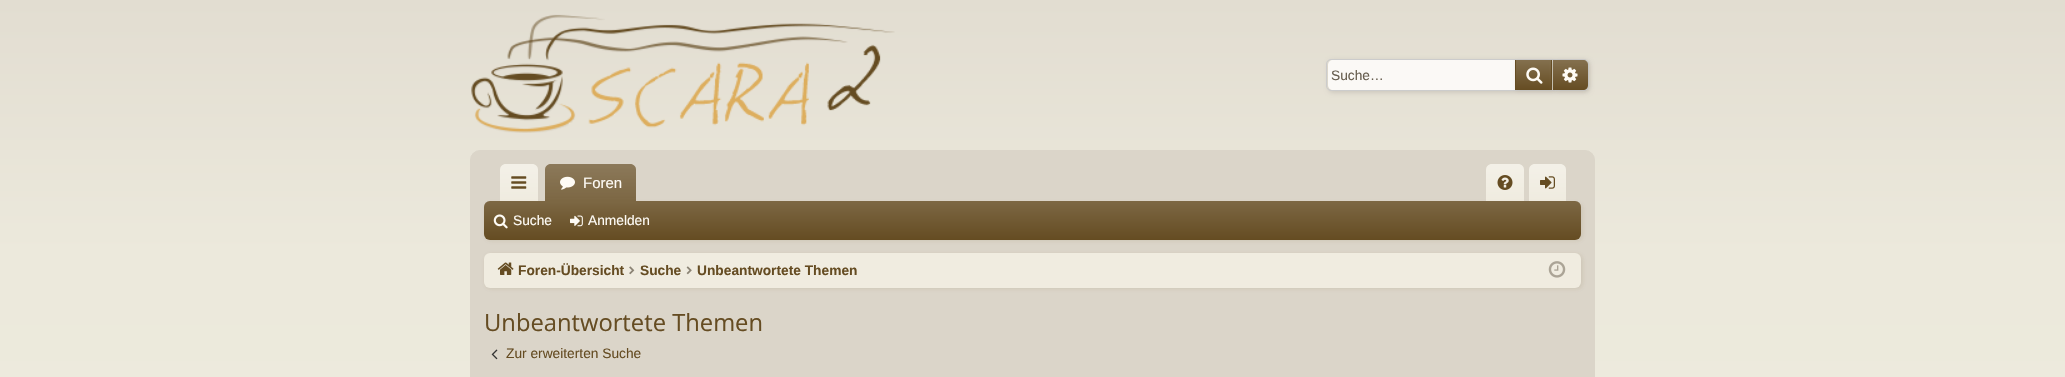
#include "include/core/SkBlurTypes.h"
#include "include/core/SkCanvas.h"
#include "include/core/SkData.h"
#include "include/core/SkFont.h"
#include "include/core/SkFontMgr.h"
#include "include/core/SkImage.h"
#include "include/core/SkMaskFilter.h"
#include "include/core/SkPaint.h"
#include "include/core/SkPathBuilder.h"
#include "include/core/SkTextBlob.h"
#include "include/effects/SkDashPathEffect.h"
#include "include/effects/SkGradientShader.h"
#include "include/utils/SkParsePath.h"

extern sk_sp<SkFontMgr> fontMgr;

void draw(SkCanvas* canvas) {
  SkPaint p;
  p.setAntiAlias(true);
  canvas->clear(SK_ColorWHITE);
  {
    const SkColor colors[] = {SkColorSetRGB(226, 221, 209), SkColorSetRGB(236, 233, 220), SkColorSetRGB(240, 239, 224)};
    const float stops[] = {0, 0.23f, 1};
    const SkPoint ends[] = {{1033, 0}, {1033, 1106}};
    p.setShader(SkGradientShader::MakeLinear(ends, colors, stops, 3, SkTileMode::kClamp));
    p.setAlpha(255);
  }
  canvas->drawRect(SkRect::MakeLTRB(0, 0, 2065, 377), p);
  canvas->drawImageRect(SkImages::DeferredFromEncodedData(SkData::MakeFromFileName("images/1.png")), SkRect::MakeLTRB(471, 14, 895, 133), SkSamplingOptions());
  p.setShader(nullptr);
  p.setColor(SkColorSetARGB(26, 0, 0, 0));
  p.setMaskFilter(SkMaskFilter::MakeBlur(kNormal_SkBlurStyle, 2));
  canvas->drawRoundRect(SkRect::MakeLTRB(1328, 60, 1590, 93), 5, 5, p);
  p.setMaskFilter(nullptr);
  p.setStyle(SkPaint::kStroke_Style);
  p.setStrokeWidth(1);
  p.setColor(SkColorSetRGB(204, 204, 204));
  canvas->drawRoundRect(SkRect::MakeLTRB(1326.5f, 59.5f, 1588.5f, 90.5f), 4.5f, 4.5f, p);
  p.setStyle(SkPaint::kFill_Style);
  p.setColor(SkColorSetRGB(251, 249, 246));
  canvas->drawPath(SkPathBuilder().moveTo(1333, 60).lineTo(1515, 60).lineTo(1515, 90).lineTo(1333, 90).cubicTo(1330, 90, 1328, 88, 1328, 85).lineTo(1328, 65).cubicTo(1328, 62, 1330, 60, 1333, 60).close().detach(), p);
  p.setColor(SkColorSetARGB(26, 101, 76, 34));
  p.setMaskFilter(SkMaskFilter::MakeBlur(kNormal_SkBlurStyle, 2));
  canvas->drawRect(SkRect::MakeLTRB(1516, 61, 1554, 91), p);
  p.setMaskFilter(nullptr);
  {
    const SkColor colors[] = {SkColorSetRGB(132, 112, 78), SkColorSetRGB(101, 76, 34)};
    const float stops[] = {0, 1};
    const SkPoint ends[] = {{1534, 60}, {1534, 90}};
    p.setShader(SkGradientShader::MakeLinear(ends, colors, stops, 2, SkTileMode::kClamp));
    p.setAlpha(255);
  }
  canvas->drawRect(SkRect::MakeLTRB(1516, 60, 1551, 90), p);
  p.setShader(nullptr);
  p.setColor(SkColorSetRGB(101, 76, 34));
  canvas->drawRect(SkRect::MakeLTRB(1551, 60, 1552, 90), p);
  canvas->drawRect(SkRect::MakeLTRB(1515, 60, 1516, 90), p);
  canvas->drawImageRect(SkImages::DeferredFromEncodedData(SkData::MakeFromFileName("images/2.png")), SkRect::MakeLTRB(1526, 67, 1543, 84), SkSamplingOptions());
  p.setColor(SkColorSetARGB(26, 101, 76, 34));
  p.setMaskFilter(SkMaskFilter::MakeBlur(kNormal_SkBlurStyle, 2));
  canvas->drawRoundRect(SkRect::MakeLTRB(1554, 61, 1589, 91), 5, 5, p);
  p.setMaskFilter(nullptr);
  p.setColor(SkColorSetRGB(101, 76, 34));
  canvas->drawPath(SkPathBuilder().moveTo(1553, 60).lineTo(1583, 60).cubicTo(1586, 60, 1588, 62, 1588, 65).lineTo(1588, 85).cubicTo(1588, 88, 1586, 90, 1583, 90).lineTo(1553, 90).close().detach(), p);
  {
    const SkColor colors[] = {SkColorSetARGB(51, 255, 255, 255), SkColorSetARGB(0, 255, 255, 255)};
    const float stops[] = {0, 1};
    const SkPoint ends[] = {{1570, 60}, {1570, 90}};
    p.setShader(SkGradientShader::MakeLinear(ends, colors, stops, 2, SkTileMode::kClamp));
    p.setAlpha(255);
  }
  canvas->drawPath(SkPathBuilder().moveTo(1553, 60).lineTo(1583, 60).cubicTo(1586, 60, 1588, 62, 1588, 65).lineTo(1588, 85).cubicTo(1588, 88, 1586, 90, 1583, 90).lineTo(1553, 90).close().detach(), p);
  canvas->drawImageRect(SkImages::DeferredFromEncodedData(SkData::MakeFromFileName("images/3.png")), SkRect::MakeLTRB(1562, 67, 1578, 83), SkSamplingOptions());
  p.setShader(nullptr);
  p.setColor(SkColorSetRGB(219, 213, 201));
  canvas->drawRoundRect(SkRect::MakeLTRB(470.5f, 150.5f, 1594.5f, 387.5f), 9.5f, 9.5f, p);
  p.setStyle(SkPaint::kStroke_Style);
  canvas->drawRoundRect(SkRect::MakeLTRB(470.5f, 150.5f, 1594.5f, 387.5f), 9.5f, 9.5f, p);
  p.setStyle(SkPaint::kFill_Style);
  p.setColor(SkColorSetRGB(240, 236, 224));
  canvas->drawPath(SkPathBuilder().moveTo(506, 164).lineTo(532, 164).cubicTo(535.5f, 164, 538, 166.5f, 538, 170).lineTo(538, 201).lineTo(500, 201).lineTo(500, 170).cubicTo(500, 166.5f, 502.5f, 164, 506, 164).close().detach(), p);
  {
    const SkColor colors[] = {SkColorSetARGB(64, 255, 255, 255), SkColorSetARGB(0, 255, 255, 255)};
    const float stops[] = {0, 1};
    const SkPoint ends[] = {{519, 164}, {519, 201}};
    p.setShader(SkGradientShader::MakeLinear(ends, colors, stops, 2, SkTileMode::kClamp));
    p.setAlpha(255);
  }
  canvas->drawPath(SkPathBuilder().moveTo(506, 164).lineTo(532, 164).cubicTo(535.5f, 164, 538, 166.5f, 538, 170).lineTo(538, 201).lineTo(500, 201).lineTo(500, 170).cubicTo(500, 166.5f, 502.5f, 164, 506, 164).close().detach(), p);
  canvas->drawImageRect(SkImages::DeferredFromEncodedData(SkData::MakeFromFileName("images/4.png")), SkRect::MakeLTRB(511, 176, 527, 189), SkSamplingOptions());
  p.setShader(nullptr);
  p.setColor(SkColorSetRGB(101, 76, 34));
  canvas->drawPath(SkPathBuilder().moveTo(551, 164).lineTo(630, 164).cubicTo(633.5f, 164, 636, 166.5f, 636, 170).lineTo(636, 201).lineTo(545, 201).lineTo(545, 170).cubicTo(545, 166.5f, 547.5f, 164, 551, 164).close().detach(), p);
  {
    const SkColor colors[] = {SkColorSetARGB(64, 255, 255, 255), SkColorSetARGB(38, 255, 255, 255)};
    const float stops[] = {0, 1};
    const SkPoint ends[] = {{591, 164}, {591, 201}};
    p.setShader(SkGradientShader::MakeLinear(ends, colors, stops, 2, SkTileMode::kClamp));
    p.setAlpha(255);
  }
  canvas->drawPath(SkPathBuilder().moveTo(551, 164).lineTo(630, 164).cubicTo(633.5f, 164, 636, 166.5f, 636, 170).lineTo(636, 201).lineTo(545, 201).lineTo(545, 170).cubicTo(545, 166.5f, 547.5f, 164, 551, 164).close().detach(), p);
  canvas->drawImageRect(SkImages::DeferredFromEncodedData(SkData::MakeFromFileName("images/5.png")), SkRect::MakeLTRB(560, 176, 575, 190), SkSamplingOptions());
  p.setShader(nullptr);
  p.setColor(SkColorSetRGB(240, 236, 224));
  canvas->drawPath(SkPathBuilder().moveTo(1492, 164).lineTo(1518, 164).cubicTo(1521.5f, 164, 1524, 166.5f, 1524, 170).lineTo(1524, 201).lineTo(1486, 201).lineTo(1486, 170).cubicTo(1486, 166.5f, 1488.5f, 164, 1492, 164).close().detach(), p);
  {
    const SkColor colors[] = {SkColorSetARGB(64, 255, 255, 255), SkColorSetARGB(0, 255, 255, 255)};
    const float stops[] = {0, 1};
    const SkPoint ends[] = {{1505, 164}, {1505, 201}};
    p.setShader(SkGradientShader::MakeLinear(ends, colors, stops, 2, SkTileMode::kClamp));
    p.setAlpha(255);
  }
  canvas->drawPath(SkPathBuilder().moveTo(1492, 164).lineTo(1518, 164).cubicTo(1521.5f, 164, 1524, 166.5f, 1524, 170).lineTo(1524, 201).lineTo(1486, 201).lineTo(1486, 170).cubicTo(1486, 166.5f, 1488.5f, 164, 1492, 164).close().detach(), p);
  p.setShader(nullptr);
  p.setColor(SkColorSetRGB(240, 236, 224));
  canvas->drawPath(SkPathBuilder().moveTo(1535, 164).lineTo(1560, 164).cubicTo(1563.5f, 164, 1566, 166.5f, 1566, 170).lineTo(1566, 201).lineTo(1529, 201).lineTo(1529, 170).cubicTo(1529, 166.5f, 1531.5f, 164, 1535, 164).close().detach(), p);
  {
    const SkColor colors[] = {SkColorSetARGB(64, 255, 255, 255), SkColorSetARGB(0, 255, 255, 255)};
    const float stops[] = {0, 1};
    const SkPoint ends[] = {{1548, 164}, {1548, 201}};
    p.setShader(SkGradientShader::MakeLinear(ends, colors, stops, 2, SkTileMode::kClamp));
    p.setAlpha(255);
  }
  canvas->drawPath(SkPathBuilder().moveTo(1535, 164).lineTo(1560, 164).cubicTo(1563.5f, 164, 1566, 166.5f, 1566, 170).lineTo(1566, 201).lineTo(1529, 201).lineTo(1529, 170).cubicTo(1529, 166.5f, 1531.5f, 164, 1535, 164).close().detach(), p);
  p.setShader(nullptr);
  p.setColor(SkColorSetARGB(26, 101, 76, 34));
  p.setMaskFilter(SkMaskFilter::MakeBlur(kNormal_SkBlurStyle, 2));
  canvas->drawRoundRect(SkRect::MakeLTRB(485, 203, 1583, 241), 6, 6, p);
  p.setMaskFilter(nullptr);
  p.setColor(SkColorSetRGB(101, 76, 34));
  canvas->drawRoundRect(SkRect::MakeLTRB(484, 201, 1581, 240), 6, 6, p);
  {
    const SkColor colors[] = {SkColorSetARGB(38, 255, 255, 255), SkColorSetARGB(0, 255, 255, 255)};
    const float stops[] = {0, 1};
    const SkPoint ends[] = {{1033, 201}, {1033, 240}};
    p.setShader(SkGradientShader::MakeLinear(ends, colors, stops, 2, SkTileMode::kClamp));
    p.setAlpha(255);
  }
  canvas->drawRoundRect(SkRect::MakeLTRB(484, 201, 1581, 240), 6, 6, p);
  p.setShader(nullptr);
  p.setColor(SkColorSetRGB(101, 76, 34));
  canvas->drawPath(SkPathBuilder().moveTo(547.5f, 200).lineTo(633.5f, 200).cubicTo(635, 200, 636, 201, 636, 202.5f).lineTo(636, 203).lineTo(545, 203).lineTo(545, 202.5f).cubicTo(545, 201, 546, 200, 547.5f, 200).close().detach(), p);
  p.setColor(SkColorSetARGB(38, 255, 255, 255));
  canvas->drawPath(SkPathBuilder().moveTo(547.5f, 200).lineTo(633.5f, 200).cubicTo(635, 200, 636, 201, 636, 202.5f).lineTo(636, 203).lineTo(545, 203).lineTo(545, 202.5f).cubicTo(545, 201, 546, 200, 547.5f, 200).close().detach(), p);
  canvas->drawImageRect(SkImages::DeferredFromEncodedData(SkData::MakeFromFileName("images/6.png")), SkRect::MakeLTRB(1497, 175, 1513, 190), SkSamplingOptions());
  canvas->drawImageRect(SkImages::DeferredFromEncodedData(SkData::MakeFromFileName("images/7.png")), SkRect::MakeLTRB(1540, 176, 1555, 189), SkSamplingOptions());
  canvas->drawImageRect(SkImages::DeferredFromEncodedData(SkData::MakeFromFileName("images/8.png")), SkRect::MakeLTRB(493, 214, 508, 229), SkSamplingOptions());
  canvas->drawImageRect(SkImages::DeferredFromEncodedData(SkData::MakeFromFileName("images/9.png")), SkRect::MakeLTRB(570, 215, 583, 227), SkSamplingOptions());
  p.setColor(SkColorSetARGB(26, 101, 76, 34));
  p.setMaskFilter(SkMaskFilter::MakeBlur(kNormal_SkBlurStyle, 2));
  canvas->drawRoundRect(SkRect::MakeLTRB(485, 254, 1583, 289), 6, 6, p);
  p.setMaskFilter(nullptr);
  p.setColor(SkColorSetRGB(240, 236, 224));
  canvas->drawRoundRect(SkRect::MakeLTRB(484, 253, 1581, 288), 6, 6, p);
  canvas->drawImageRect(SkImages::DeferredFromEncodedData(SkData::MakeFromFileName("images/10.png")), SkRect::MakeLTRB(497, 262, 514, 275), SkSamplingOptions());
  canvas->drawImageRect(SkImages::DeferredFromEncodedData(SkData::MakeFromFileName("images/11.png")), SkRect::MakeLTRB(629, 266, 635, 275), SkSamplingOptions());
  canvas->drawImageRect(SkImages::DeferredFromEncodedData(SkData::MakeFromFileName("images/12.png")), SkRect::MakeLTRB(686, 266, 692, 275), SkSamplingOptions());
  canvas->drawImageRect(SkImages::DeferredFromEncodedData(SkData::MakeFromFileName("images/13.png")), SkRect::MakeLTRB(1548, 261, 1566, 278), SkSamplingOptions());
  canvas->drawImageRect(SkImages::DeferredFromEncodedData(SkData::MakeFromFileName("images/14.png")), SkRect::MakeLTRB(491, 349, 498, 360), SkSamplingOptions());
  SkFont font1(fontMgr->matchFamilyStyle("Liberation Sans", SkFontStyle::Normal()), 13.75f);
  font1.setSubpixel(true);
  p.setColor(SkColorSetRGB(103, 94, 79));
  canvas->drawString("Suche…", 1331, 80, font1, p);
  SkFont font2(fontMgr->matchFamilyStyle("Liberation Sans", SkFontStyle::Normal()), 15);
  font2.setSubpixel(true);
  p.setColor(SkColorSetRGB(254, 251, 245));
  canvas->drawString("Foren", 583, 188, font2, p);
  canvas->drawString("Suche", 513, 225, font1, p);
  canvas->drawString("Anmelden", 588, 225, font1, p);
  SkFont font3(fontMgr->matchFamilyStyle("Liberation Sans", SkFontStyle::Bold()), 13.75f);
  font3.setSubpixel(true);
  p.setColor(SkColorSetRGB(101, 76, 34));
  canvas->drawString("Foren-Übersicht", 518, 275, font3, p);
  canvas->drawString("Suche", 640, 275, font3, p);
  canvas->drawString("Unbeantwortete Themen", 697, 275, font3, p);
  SkFont font4(fontMgr->matchFamilyStyle("Open Sans", SkFontStyle::Normal()), 23.75f);
  font4.setSubpixel(true);
  canvas->drawString("Unbeantwortete Themen", 484, 331, font4, p);
  canvas->drawString("Zur erweiterten Suche", 506, 358, font1, p);
}
